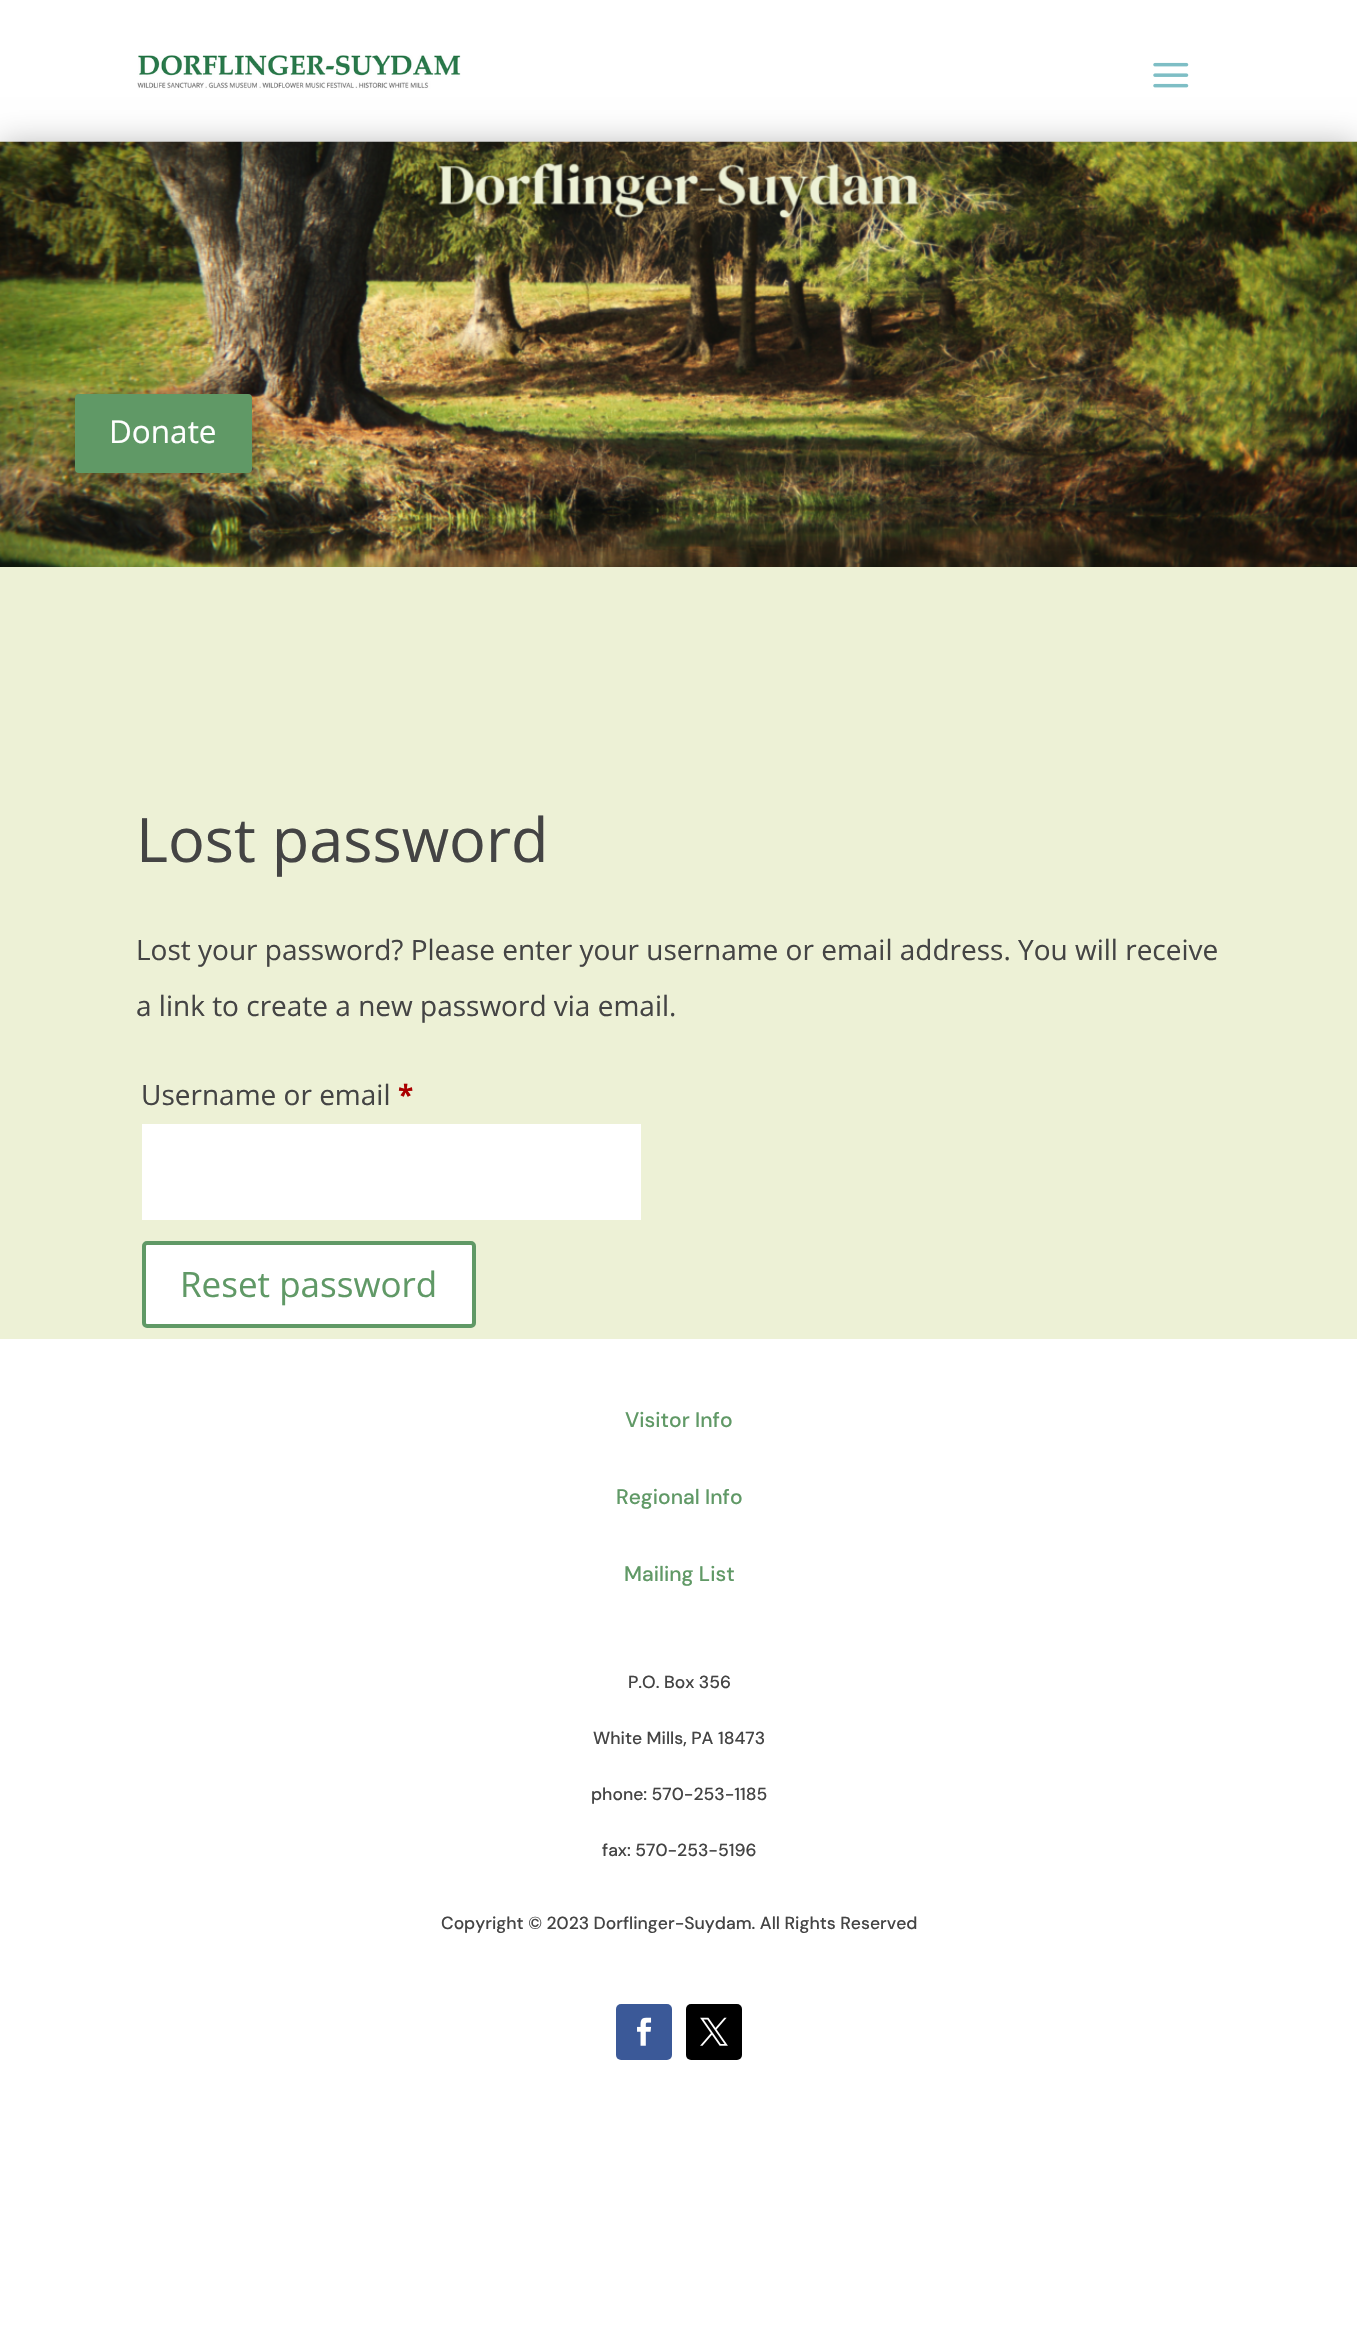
#include "include/core/SkBlurTypes.h"
#include "include/core/SkCanvas.h"
#include "include/core/SkData.h"
#include "include/core/SkFont.h"
#include "include/core/SkFontMgr.h"
#include "include/core/SkImage.h"
#include "include/core/SkMaskFilter.h"
#include "include/core/SkPaint.h"
#include "include/core/SkPathBuilder.h"
#include "include/core/SkTextBlob.h"
#include "include/effects/SkDashPathEffect.h"
#include "include/effects/SkGradientShader.h"
#include "include/utils/SkParsePath.h"

extern sk_sp<SkFontMgr> fontMgr;

void draw(SkCanvas* canvas) {
  SkPaint p;
  p.setAntiAlias(true);
  canvas->clear(SK_ColorWHITE);
  canvas->drawImageRect(SkImages::DeferredFromEncodedData(SkData::MakeFromFileName("images/1.png")), SkRect::MakeLTRB(137, 55, 461, 89), SkSamplingOptions());
  canvas->drawImageRect(SkImages::DeferredFromEncodedData(SkData::MakeFromFileName("images/2.png")), SkRect::MakeLTRB(1153, 62, 1189, 88), SkSamplingOptions());
  p.setColor(SkColorSetARGB(77, 0, 0, 0));
  p.setMaskFilter(SkMaskFilter::MakeBlur(kNormal_SkBlurStyle, 16));
  canvas->drawRect(SkRect::MakeLTRB(0, 145, 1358, 571), p);
  p.setMaskFilter(nullptr);
  canvas->drawImageRect(SkImages::DeferredFromEncodedData(SkData::MakeFromFileName("images/3.png")), SkRect::MakeLTRB(0, 141, 1357, 567), SkSamplingOptions());
  p.setColor(SkColorSetRGB(237, 241, 214));
  canvas->drawRect(SkRect::MakeLTRB(0, 567, 1357, 707), p);
  p.setColor(SkColorSetARGB(77, 0, 0, 0));
  p.setMaskFilter(SkMaskFilter::MakeBlur(kNormal_SkBlurStyle, 14));
  canvas->drawRoundRect(SkRect::MakeLTRB(75, 396, 252, 474), 4, 4, p);
  p.setMaskFilter(nullptr);
  p.setColor(SkColorSetRGB(96, 153, 102));
  canvas->drawRoundRect(SkRect::MakeLTRB(76.5f, 395.5f, 250.5f, 471.5f), 2.5f, 2.5f, p);
  p.setStyle(SkPaint::kStroke_Style);
  p.setStrokeWidth(3);
  canvas->drawRoundRect(SkRect::MakeLTRB(76.5f, 395.5f, 250.5f, 471.5f), 2.5f, 2.5f, p);
  p.setStyle(SkPaint::kFill_Style);
  p.setColor(SkColorSetRGB(237, 241, 214));
  canvas->drawRect(SkRect::MakeLTRB(0, 707, 1357, 1339), p);
  p.setColor(SK_ColorWHITE);
  canvas->drawRect(SkRect::MakeLTRB(142, 1124, 641, 1220), p);
  canvas->drawRoundRect(SkRect::MakeLTRB(144, 1243, 474, 1326), 3, 3, p);
  p.setStyle(SkPaint::kStroke_Style);
  p.setStrokeWidth(4);
  p.setColor(SkColorSetRGB(96, 153, 102));
  canvas->drawRoundRect(SkRect::MakeLTRB(144, 1243, 474, 1326), 3, 3, p);
  p.setStyle(SkPaint::kFill_Style);
  p.setColor(SkColorSetRGB(59, 89, 152));
  canvas->drawRoundRect(SkRect::MakeLTRB(616, 2004, 672, 2060), 5, 5, p);
  canvas->drawImageRect(SkImages::DeferredFromEncodedData(SkData::MakeFromFileName("images/4.png")), SkRect::MakeLTRB(637, 2017, 652, 2046), SkSamplingOptions());
  p.setColor(SK_ColorBLACK);
  canvas->drawRoundRect(SkRect::MakeLTRB(686, 2004, 742, 2060), 5, 5, p);
  canvas->drawImageRect(SkImages::DeferredFromEncodedData(SkData::MakeFromFileName("images/5.png")), SkRect::MakeLTRB(700, 2017, 728, 2046), SkSamplingOptions());
  SkFont font1(fontMgr->matchFamilyStyle("Open Sans", SkFontStyle::Normal()), 31.5f);
  font1.setSubpixel(true);
  p.setColor(SK_ColorWHITE);
  canvas->drawString("Donate", 109, 443, font1, p);
  SkFont font2(fontMgr->matchFamilyStyle("Open Sans", SkFontStyle::Normal()), 61.25f);
  font2.setSubpixel(true);
  p.setColor(SkColorSetRGB(68, 68, 68));
  canvas->drawString("Lost password", 136, 862, font2, p);
  SkFont font3(fontMgr->matchFamilyStyle("Open Sans", SkFontStyle::Normal()), 28);
  font3.setSubpixel(true);
  canvas->drawString("Lost your password? Please enter your username or email address. You will receive", 136, 960, font3, p);
  canvas->drawString("a link to create a new password via email.", 136, 1016, font3, p);
  canvas->drawString("Username or email", 141, 1105, font3, p);
  SkFont font4(fontMgr->matchFamilyStyle("Open Sans", SkFontStyle::Bold()), 28);
  font4.setSubpixel(true);
  p.setColor(SkColorSetRGB(170, 0, 0));
  canvas->drawString("*", 398, 1105, font4, p);
  SkFont font5(fontMgr->matchFamilyStyle("Open Sans", SkFontStyle::Normal()), 35);
  font5.setSubpixel(true);
  p.setColor(SkColorSetRGB(96, 153, 102));
  canvas->drawString("Reset password", 180, 1297, font5, p);
  SkFont font6(fontMgr->matchFamilyStyle("DM Sans", SkFontStyle(500, SkFontStyle::kNormal_Width, SkFontStyle::kUpright_Slant)), 21);
  font6.setSubpixel(true);
  canvas->drawString("Visitor Info", 625, 1427, font6, p);
  canvas->drawString("Regional Info", 616, 1504, font6, p);
  canvas->drawString("Mailing List", 624, 1581, font6, p);
  SkFont font7(fontMgr->matchFamilyStyle("DM Sans", SkFontStyle(500, SkFontStyle::kNormal_Width, SkFontStyle::kUpright_Slant)), 17.5f);
  font7.setSubpixel(true);
  p.setColor(SkColorSetRGB(68, 68, 68));
  canvas->drawString("P.O. Box 356", 628, 1688, font7, p);
  canvas->drawString("White Mills, PA 18473", 593, 1744, font7, p);
  canvas->drawString("phone: 570-253-1185", 591, 1800, font7, p);
  canvas->drawString("fax: 570-253-5196", 602, 1856, font7, p);
  canvas->drawString("Copyright © 2023 Dorflinger-Suydam. All Rights Reserved", 441, 1929, font7, p);
}
